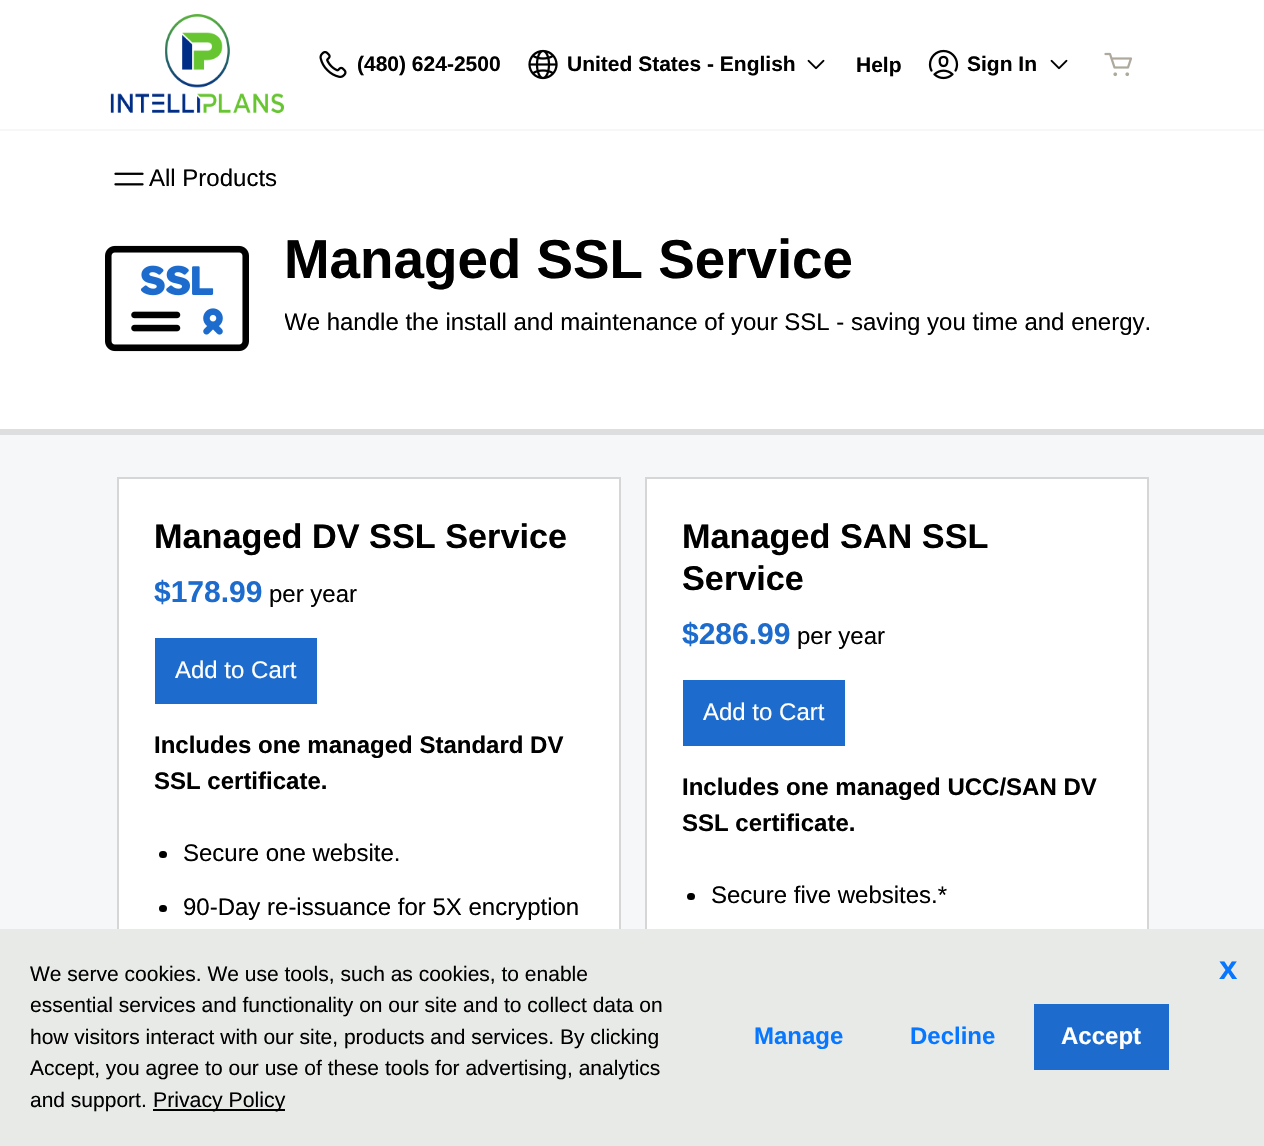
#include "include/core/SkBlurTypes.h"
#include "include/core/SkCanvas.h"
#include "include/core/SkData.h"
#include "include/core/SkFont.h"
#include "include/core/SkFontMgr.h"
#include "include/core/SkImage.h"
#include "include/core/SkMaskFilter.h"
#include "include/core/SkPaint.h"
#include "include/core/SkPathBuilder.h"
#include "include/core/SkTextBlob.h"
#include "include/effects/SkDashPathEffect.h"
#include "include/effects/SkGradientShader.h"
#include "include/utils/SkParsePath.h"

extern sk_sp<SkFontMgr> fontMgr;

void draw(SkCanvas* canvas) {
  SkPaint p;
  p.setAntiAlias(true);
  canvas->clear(SkColorSetRGB(245, 247, 248));
  p.setColor(SK_ColorWHITE);
  canvas->drawRect(SkRect::MakeLTRB(0, 0, 1264, 129), p);
  canvas->drawImageRect(SkImages::DeferredFromEncodedData(SkData::MakeFromFileName("images/1.png")), SkRect::MakeLTRB(110, 14, 284, 113), SkSamplingOptions());
  canvas->drawImageRect(SkImages::DeferredFromEncodedData(SkData::MakeFromFileName("images/2.png")), SkRect::MakeLTRB(319, 51, 347, 78), SkSamplingOptions());
  canvas->drawImageRect(SkImages::DeferredFromEncodedData(SkData::MakeFromFileName("images/3.png")), SkRect::MakeLTRB(528, 49, 558, 80), SkSamplingOptions());
  canvas->drawImageRect(SkImages::DeferredFromEncodedData(SkData::MakeFromFileName("images/4.png")), SkRect::MakeLTRB(807, 59, 825, 70), SkSamplingOptions());
  canvas->drawImageRect(SkImages::DeferredFromEncodedData(SkData::MakeFromFileName("images/5.png")), SkRect::MakeLTRB(928, 49, 959, 80), SkSamplingOptions());
  canvas->drawImageRect(SkImages::DeferredFromEncodedData(SkData::MakeFromFileName("images/4.png")), SkRect::MakeLTRB(1050, 59, 1068, 70), SkSamplingOptions());
  canvas->drawImageRect(SkImages::DeferredFromEncodedData(SkData::MakeFromFileName("images/6.png")), SkRect::MakeLTRB(1104, 52, 1133, 77), SkSamplingOptions());
  canvas->drawRect(SkRect::MakeLTRB(0, 131, 1264, 429), p);
  canvas->drawImageRect(SkImages::DeferredFromEncodedData(SkData::MakeFromFileName("images/7.png")), SkRect::MakeLTRB(114, 172, 144, 186), SkSamplingOptions());
  p.setColor(SkColorSetRGB(221, 222, 223));
  canvas->drawPath(SkPathBuilder().moveTo(0, 429).lineTo(0, 435).lineTo(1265, 435).lineTo(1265, 233).lineTo(1264, 233).lineTo(1264, 429).close().detach(), p);
  canvas->drawImageRect(SkImages::DeferredFromEncodedData(SkData::MakeFromFileName("images/8.png")), SkRect::MakeLTRB(105, 245, 249, 352), SkSamplingOptions());
  p.setColor(SK_ColorWHITE);
  canvas->drawRect(SkRect::MakeLTRB(119, 479, 619, 929), p);
  p.setStyle(SkPaint::kStroke_Style);
  p.setStrokeWidth(2);
  p.setColor(SkColorSetRGB(214, 214, 214));
  canvas->drawRect(SkRect::MakeLTRB(118, 478, 620, 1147), p);
  p.setStyle(SkPaint::kFill_Style);
  p.setColor(SkColorSetRGB(29, 108, 205));
  canvas->drawRect(SkRect::MakeLTRB(155, 638, 317, 704), p);
  p.setColor(SK_ColorBLACK);
  canvas->drawRoundRect(SkRect::MakeLTRB(159, 851, 167, 858), 3.5f, 3.5f, p);
  canvas->drawRoundRect(SkRect::MakeLTRB(159, 905, 167, 912), 3.5f, 3.5f, p);
  p.setColor(SK_ColorWHITE);
  canvas->drawRect(SkRect::MakeLTRB(647, 479, 1147, 929), p);
  p.setStyle(SkPaint::kStroke_Style);
  p.setColor(SkColorSetRGB(214, 214, 214));
  canvas->drawRect(SkRect::MakeLTRB(646, 478, 1148, 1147), p);
  p.setStyle(SkPaint::kFill_Style);
  p.setColor(SkColorSetRGB(29, 108, 205));
  canvas->drawRect(SkRect::MakeLTRB(683, 680, 845, 746), p);
  p.setColor(SK_ColorBLACK);
  canvas->drawRoundRect(SkRect::MakeLTRB(687, 893, 695, 900), 3.5f, 3.5f, p);
  p.setColor(SkColorSetRGB(232, 234, 232));
  canvas->drawRect(SkRect::MakeLTRB(0, 929, 1264, 1146), p);
  p.setColor(SK_ColorBLACK);
  canvas->drawRect(SkRect::MakeLTRB(153, 1109, 285, 1111), p);
  p.setColor(SkColorSetRGB(29, 108, 205));
  canvas->drawRect(SkRect::MakeLTRB(1034, 1004, 1169, 1070), p);
  SkFont font1(fontMgr->matchFamilyStyle("Liberation Sans", SkFontStyle::Bold()), 21);
  font1.setSubpixel(true);
  p.setColor(SK_ColorBLACK);
  canvas->drawString("(480) 624-2500", 357, 71, font1, p);
  canvas->drawString("United States - English", 567, 71, font1, p);
  canvas->drawString("Help", 856, 72, font1, p);
  canvas->drawString("Sign In", 967, 71, font1, p);
  SkFont font2(fontMgr->matchFamilyStyle("Liberation Sans", SkFontStyle::Normal()), 24);
  font2.setSubpixel(true);
  canvas->drawString("All Products", 149, 186, font2, p);
  SkFont font3(fontMgr->matchFamilyStyle("Liberation Sans", SkFontStyle::Bold()), 54.75f);
  font3.setSubpixel(true);
  canvas->drawString("Managed SSL Service", 284, 278, font3, p);
  canvas->save();
  canvas->clipRect(SkRect::MakeLTRB(285, 227, 1161, 341));
  canvas->drawString("We handle the install and maintenance of your SSL - saving you time and energy.", 284, 330, font2, p);
  canvas->restore();
  SkFont font4(fontMgr->matchFamilyStyle("Liberation Sans", SkFontStyle::Bold()), 34.25f);
  font4.setSubpixel(true);
  canvas->drawString("Managed DV SSL Service", 154, 548, font4, p);
  SkFont font5(fontMgr->matchFamilyStyle("Liberation Sans", SkFontStyle::Bold()), 30);
  font5.setSubpixel(true);
  p.setColor(SkColorSetRGB(29, 108, 205));
  canvas->drawString("$178.99", 154, 602, font5, p);
  p.setColor(SK_ColorBLACK);
  canvas->drawString("per year", 269, 602, font2, p);
  p.setColor(SK_ColorWHITE);
  canvas->drawString("Add to Cart", 175, 678, font2, p);
  SkFont font6(fontMgr->matchFamilyStyle("Liberation Sans", SkFontStyle::Bold()), 24);
  font6.setSubpixel(true);
  p.setColor(SK_ColorBLACK);
  canvas->drawString("Includes one managed Standard DV", 154, 753, font6, p);
  canvas->drawString("SSL certificate.", 154, 789, font6, p);
  canvas->drawString("Secure one website.", 183, 861, font2, p);
  canvas->drawString("90-Day re-issuance for 5X encryption", 183, 915, font2, p);
  canvas->drawString("Managed SAN SSL", 682, 548, font4, p);
  canvas->drawString("Service", 682, 590, font4, p);
  p.setColor(SkColorSetRGB(29, 108, 205));
  canvas->drawString("$286.99", 682, 644, font5, p);
  p.setColor(SK_ColorBLACK);
  canvas->drawString("per year", 797, 644, font2, p);
  p.setColor(SK_ColorWHITE);
  canvas->drawString("Add to Cart", 703, 720, font2, p);
  p.setColor(SK_ColorBLACK);
  canvas->drawString("Includes one managed UCC/SAN DV", 682, 795, font6, p);
  canvas->drawString("SSL certificate.", 682, 831, font6, p);
  canvas->drawString("Secure five websites.*", 711, 903, font2, p);
  SkFont font7(fontMgr->matchFamilyStyle("Liberation Sans", SkFontStyle::Normal()), 21);
  font7.setSubpixel(true);
  canvas->drawString("We serve cookies. We use tools, such as cookies, to enable", 30, 981, font7, p);
  canvas->drawString("essential services and functionality on our site and to collect data on", 30, 1012, font7, p);
  canvas->drawString("how visitors interact with our site, products and services. By clicking", 30, 1044, font7, p);
  canvas->drawString("Accept, you agree to our use of these tools for advertising, analytics", 30, 1075, font7, p);
  canvas->drawString("and support.", 30, 1107, font7, p);
  SkFont font8(fontMgr->matchFamilyStyle("Liberation Sans", SkFontStyle::Normal()), 21.25f);
  font8.setSubpixel(true);
  canvas->drawString("Privacy Policy", 153, 1107, font8, p);
  p.setColor(SkColorSetRGB(8, 119, 255));
  canvas->drawString("Manage", 754, 1044, font6, p);
  canvas->drawString("Decline", 910, 1044, font6, p);
  p.setColor(SK_ColorWHITE);
  canvas->drawString("Accept", 1061, 1044, font6, p);
  SkFont font9(fontMgr->matchFamilyStyle("Liberation Sans", SkFontStyle::Bold()), 33);
  font9.setSubpixel(true);
  p.setColor(SkColorSetRGB(8, 119, 255));
  canvas->drawString("x", 1219, 979, font9, p);
}
